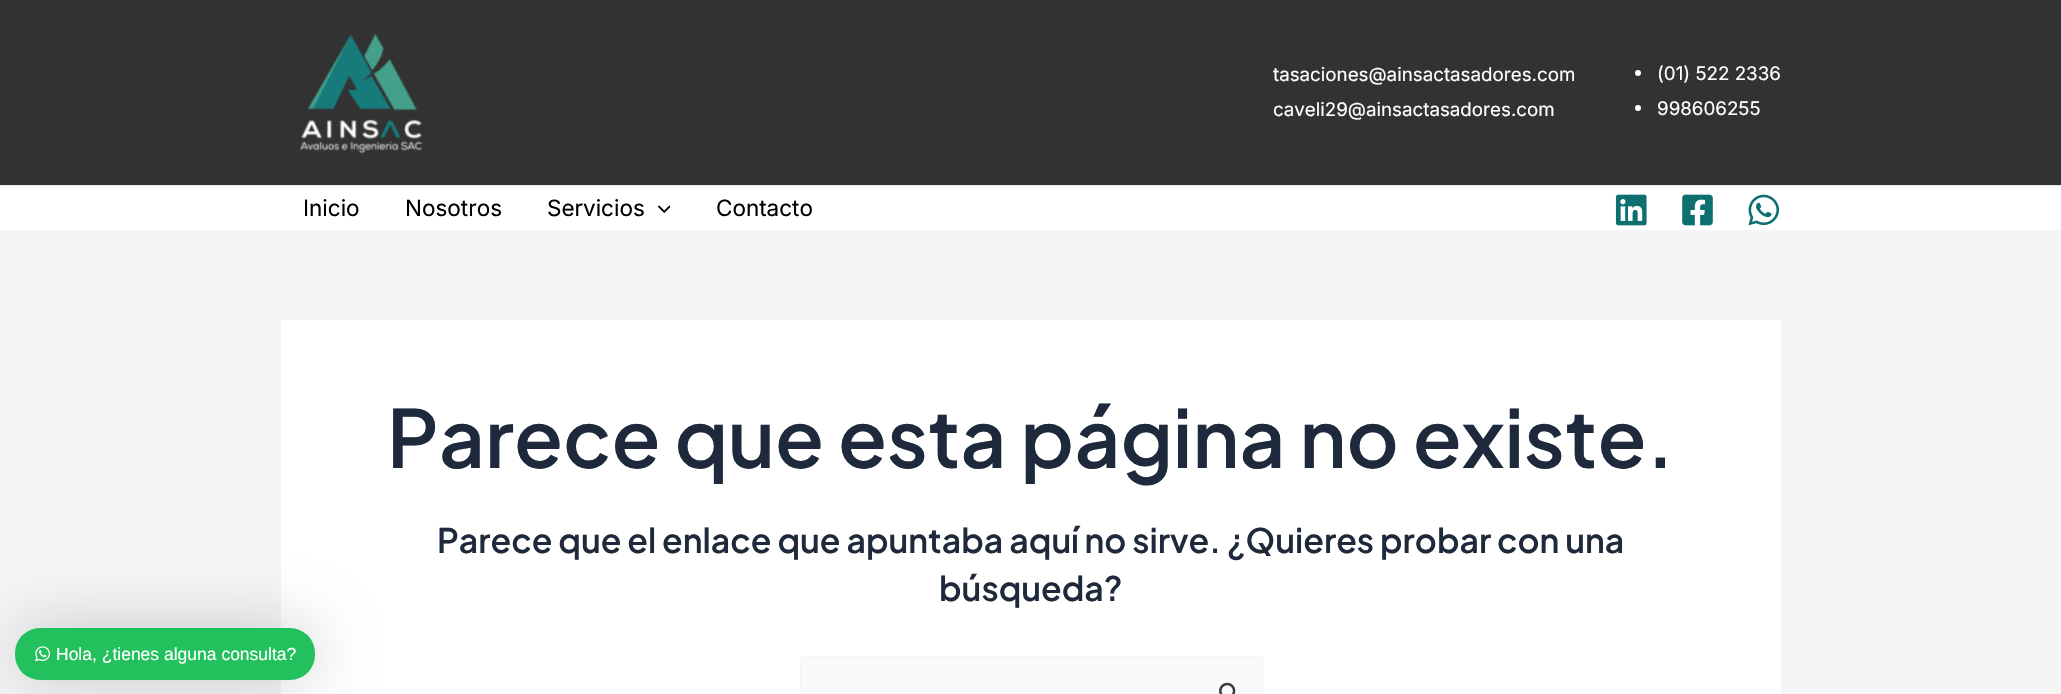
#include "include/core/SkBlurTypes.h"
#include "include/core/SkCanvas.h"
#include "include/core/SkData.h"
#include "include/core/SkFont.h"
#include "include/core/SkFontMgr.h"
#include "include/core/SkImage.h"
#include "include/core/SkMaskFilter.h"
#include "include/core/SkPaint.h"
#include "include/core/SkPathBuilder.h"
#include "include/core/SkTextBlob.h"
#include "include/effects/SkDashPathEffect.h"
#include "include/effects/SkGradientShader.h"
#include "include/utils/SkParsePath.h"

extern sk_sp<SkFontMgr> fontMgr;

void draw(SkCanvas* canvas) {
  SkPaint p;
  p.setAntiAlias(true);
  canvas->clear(SkColorSetRGB(245, 245, 245));
  p.setColor(SkColorSetRGB(50, 50, 50));
  canvas->drawRect(SkRect::MakeLTRB(0, 0, 2061, 185), p);
  p.setColor(SkColorSetRGB(234, 234, 234));
  canvas->drawRect(SkRect::MakeLTRB(0, 185, 2061, 186), p);
  canvas->drawImageRect(SkImages::DeferredFromEncodedData(SkData::MakeFromFileName("images/1.png")), SkRect::MakeLTRB(300, 33, 423, 154), SkSamplingOptions());
  p.setColor(SK_ColorWHITE);
  canvas->drawCircle(1638, 73, 3, p);
  canvas->drawCircle(1638, 108, 3, p);
  canvas->drawRect(SkRect::MakeLTRB(0, 186, 2061, 230), p);
  canvas->drawImageRect(SkImages::DeferredFromEncodedData(SkData::MakeFromFileName("images/2.png")), SkRect::MakeLTRB(658, 205, 670, 213), SkSamplingOptions());
  canvas->drawImageRect(SkImages::DeferredFromEncodedData(SkData::MakeFromFileName("images/3.png")), SkRect::MakeLTRB(1615, 194, 1647, 226), SkSamplingOptions());
  canvas->drawImageRect(SkImages::DeferredFromEncodedData(SkData::MakeFromFileName("images/4.png")), SkRect::MakeLTRB(1682, 194, 1713, 226), SkSamplingOptions());
  canvas->drawImageRect(SkImages::DeferredFromEncodedData(SkData::MakeFromFileName("images/5.png")), SkRect::MakeLTRB(1748, 194, 1780, 226), SkSamplingOptions());
  canvas->drawRect(SkRect::MakeLTRB(281, 320, 1781, 694), p);
  p.setColor(SkColorSetRGB(250, 250, 250));
  canvas->drawRoundRect(SkRect::MakeLTRB(800.5f, 656.5f, 1262.5f, 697.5f), 2, 2, p);
  p.setStyle(SkPaint::kStroke_Style);
  p.setStrokeWidth(1);
  p.setColor(SkColorSetRGB(242, 245, 247));
  canvas->drawRoundRect(SkRect::MakeLTRB(800.5f, 656.5f, 1262.5f, 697.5f), 2, 2, p);
  canvas->drawImageRect(SkImages::DeferredFromEncodedData(SkData::MakeFromFileName("images/6.png")), SkRect::MakeLTRB(1219, 682, 1236, 694), SkSamplingOptions());
  p.setStyle(SkPaint::kFill_Style);
  p.setColor(SkColorSetARGB(51, 0, 0, 0));
  p.setMaskFilter(SkMaskFilter::MakeBlur(kNormal_SkBlurStyle, 31));
  canvas->drawRoundRect(SkRect::MakeLTRB(15, 628, 315, 680), 25, 25, p);
  p.setMaskFilter(nullptr);
  p.setColor(SkColorSetRGB(34, 193, 94));
  canvas->drawRoundRect(SkRect::MakeLTRB(15, 628, 315, 680), 25, 25, p);
  canvas->drawImageRect(SkImages::DeferredFromEncodedData(SkData::MakeFromFileName("images/7.png")), SkRect::MakeLTRB(35, 646, 50, 662), SkSamplingOptions());
  SkFont font1(fontMgr->matchFamilyStyle("Inter", SkFontStyle::Normal()), 18.75f);
  font1.setSubpixel(true);
  p.setColor(SK_ColorWHITE);
  canvas->drawString("tasaciones@ainsactasadores.com", 1273, 81, font1, p);
  canvas->drawString("caveli29@ainsactasadores.com", 1273, 116, font1, p);
  canvas->drawString("(01) 522 2336", 1657, 80, font1, p);
  canvas->drawString("998606255", 1657, 115, font1, p);
  SkFont font2(fontMgr->matchFamilyStyle("Inter", SkFontStyle::Normal()), 22.5f);
  font2.setSubpixel(true);
  p.setColor(SK_ColorBLACK);
  canvas->drawString("Inicio", 303, 216, font2, p);
  canvas->drawString("Nosotros", 405, 216, font2, p);
  canvas->drawString("Servicios", 547, 216, font2, p);
  canvas->drawString("Contacto", 716, 216, font2, p);
  SkFont font3(fontMgr->matchFamilyStyle("Plus Jakarta Sans", SkFontStyle(600, SkFontStyle::kNormal_Width, SkFontStyle::kUpright_Slant)), 80);
  font3.setSubpixel(true);
  p.setColor(SkColorSetRGB(30, 41, 59));
  canvas->drawString("Parece que esta página no existe.", 387, 468, font3, p);
  SkFont font4(fontMgr->matchFamilyStyle("Plus Jakarta Sans", SkFontStyle(600, SkFontStyle::kNormal_Width, SkFontStyle::kUpright_Slant)), 33.75f);
  font4.setSubpixel(true);
  canvas->drawString("Parece que el enlace que apuntaba aquí no sirve. ¿Quieres probar con una", 437, 553, font4, p);
  canvas->drawString("búsqueda?", 939, 601, font4, p);
  SkFont font5(fontMgr->matchFamilyStyle("Liberation Sans", SkFontStyle::Normal()), 17.5f);
  font5.setSubpixel(true);
  p.setColor(SK_ColorWHITE);
  canvas->drawString("Hola, ¿tienes alguna consulta?", 56, 660, font5, p);
}
